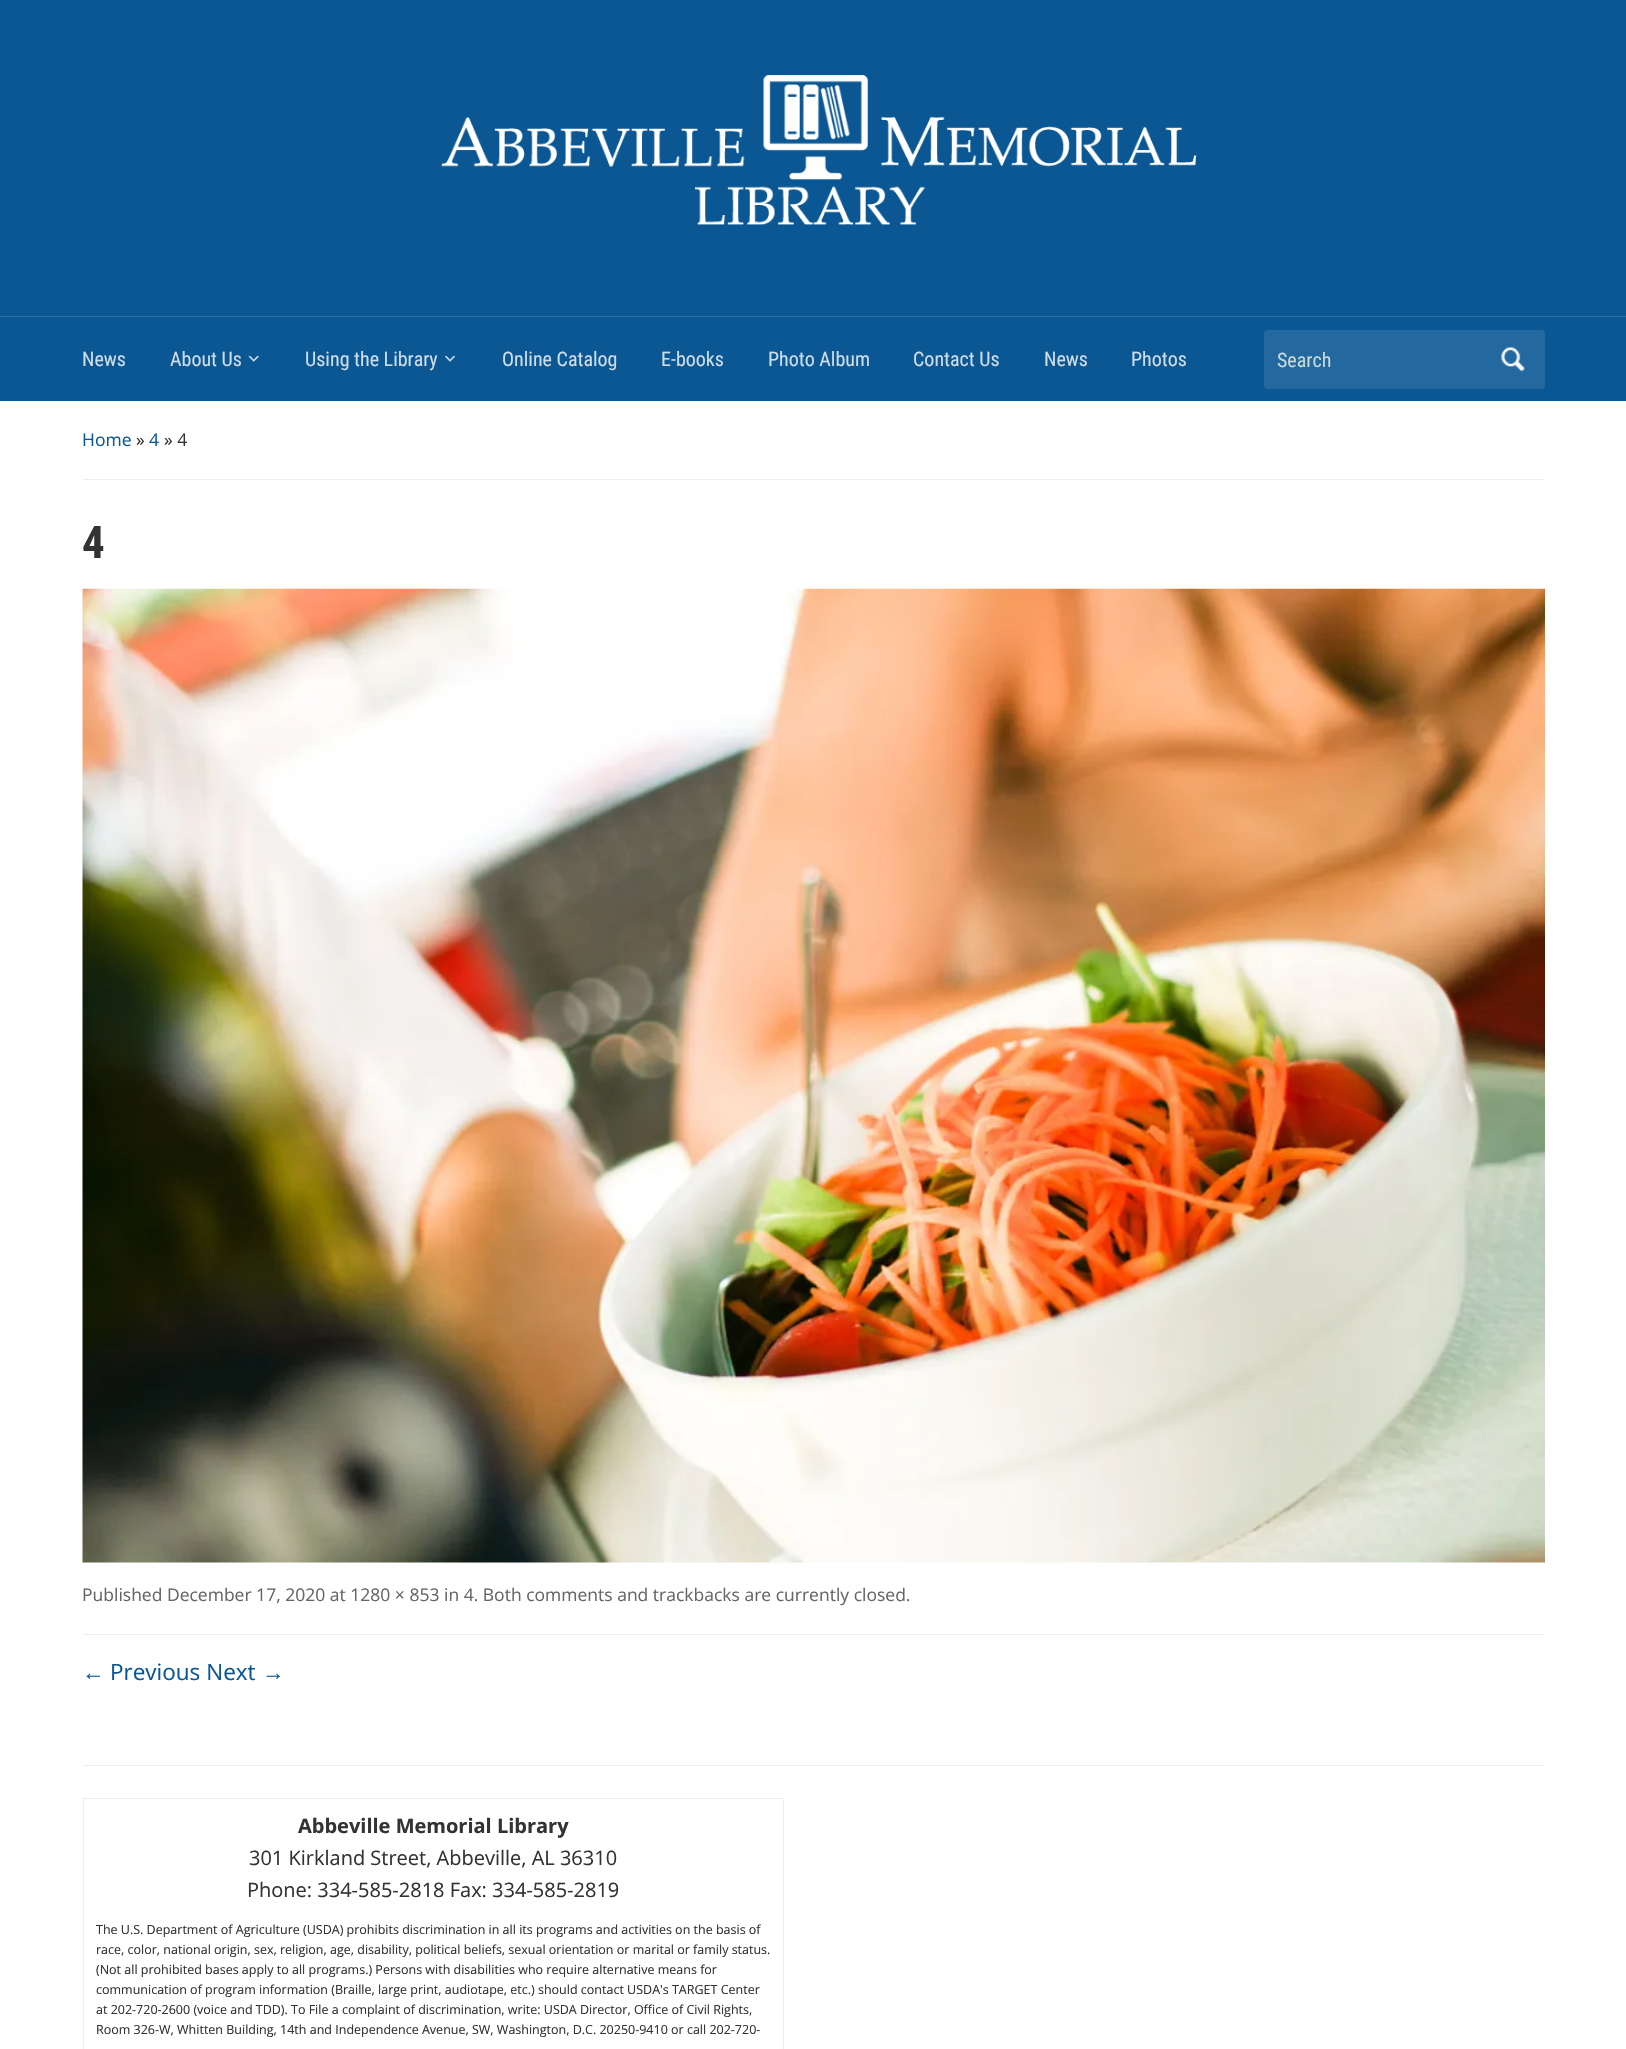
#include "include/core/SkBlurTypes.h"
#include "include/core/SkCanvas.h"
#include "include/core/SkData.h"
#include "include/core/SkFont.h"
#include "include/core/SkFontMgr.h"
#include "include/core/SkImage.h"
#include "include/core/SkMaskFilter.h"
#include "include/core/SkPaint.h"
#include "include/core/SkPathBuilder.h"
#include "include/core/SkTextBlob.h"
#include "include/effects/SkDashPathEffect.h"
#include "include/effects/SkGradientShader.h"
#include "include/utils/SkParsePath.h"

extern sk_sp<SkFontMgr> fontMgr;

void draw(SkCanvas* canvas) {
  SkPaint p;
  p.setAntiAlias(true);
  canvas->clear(SK_ColorWHITE);
  p.setColor(SkColorSetRGB(10, 87, 148));
  canvas->drawRect(SkRect::MakeLTRB(0, 0, 1626, 401), p);
  canvas->drawImageRect(SkImages::DeferredFromEncodedData(SkData::MakeFromFileName("images/1.png")), SkRect::MakeLTRB(441, 75, 1197, 225), SkSamplingOptions());
  p.setColor(SkColorSetRGB(42, 109, 162));
  canvas->drawRect(SkRect::MakeLTRB(0, 316, 1626, 317), p);
  canvas->drawImageRect(SkImages::DeferredFromEncodedData(SkData::MakeFromFileName("images/2.png")), SkRect::MakeLTRB(248, 355, 259, 362), SkSamplingOptions());
  canvas->drawImageRect(SkImages::DeferredFromEncodedData(SkData::MakeFromFileName("images/3.png")), SkRect::MakeLTRB(444, 355, 456, 362), SkSamplingOptions());
  p.setColor(SkColorSetRGB(35, 104, 159));
  canvas->drawRoundRect(SkRect::MakeLTRB(1264, 330, 1545, 389), 4, 4, p);
  canvas->drawImageRect(SkImages::DeferredFromEncodedData(SkData::MakeFromFileName("images/4.png")), SkRect::MakeLTRB(1501, 347, 1525, 372), SkSamplingOptions());
  p.setColor(SkColorSetRGB(238, 238, 238));
  canvas->drawRect(SkRect::MakeLTRB(83, 479, 1545, 480), p);
  canvas->drawImageRect(SkImages::DeferredFromEncodedData(SkData::MakeFromFileName("images/5.png")), SkRect::MakeLTRB(82, 588, 1545, 1563), SkSamplingOptions());
  canvas->drawRect(SkRect::MakeLTRB(83, 1634, 1545, 1635), p);
  canvas->drawRect(SkRect::MakeLTRB(83, 1765, 1545, 1766), p);
  p.setStyle(SkPaint::kStroke_Style);
  p.setStrokeWidth(1);
  canvas->drawRect(SkRect::MakeLTRB(83.5f, 1798.5f, 783.5f, 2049.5f), p);
  SkFont font1(fontMgr->matchFamilyStyle("Roboto Condensed", SkFontStyle::Normal()), 20);
  font1.setSubpixel(true);
  p.setStyle(SkPaint::kFill_Style);
  p.setColor(SkColorSetRGB(206, 221, 234));
  canvas->drawString("News", 82, 366, font1, p);
  canvas->drawString("About Us", 170, 366, font1, p);
  canvas->drawString("Using the Library", 305, 366, font1, p);
  canvas->drawString("Online Catalog", 502, 366, font1, p);
  canvas->drawString("E-books", 661, 366, font1, p);
  canvas->drawString("Photo Album", 768, 366, font1, p);
  canvas->drawString("Contact Us", 913, 366, font1, p);
  canvas->drawString("News", 1044, 366, font1, p);
  canvas->drawString("Photos", 1131, 366, font1, p);
  p.setColor(SkColorSetRGB(198, 217, 219));
  canvas->drawString("Search", 1277, 367, font1, p);
  SkFont font2(fontMgr->matchFamilyStyle("Open Sans", SkFontStyle::Normal()), 17.5f);
  font2.setSubpixel(true);
  p.setColor(SkColorSetRGB(10, 87, 148));
  canvas->drawString("Home", 82, 446, font2, p);
  p.setColor(SkColorSetRGB(51, 51, 51));
  canvas->drawString("»", 136, 446, font2, p);
  p.setColor(SkColorSetRGB(10, 87, 148));
  canvas->drawString("4", 149, 446, font2, p);
  p.setColor(SkColorSetRGB(51, 51, 51));
  canvas->drawString("» 4", 164, 446, font2, p);
  SkFont font3(fontMgr->matchFamilyStyle("Roboto Condensed", SkFontStyle::Bold()), 45);
  font3.setSubpixel(true);
  canvas->drawString("4", 82, 558, font3, p);
  p.setColor(SkColorSetRGB(102, 102, 102));
  canvas->drawString("Published December 17, 2020 at 1280 × 853 in 4. Both comments and trackbacks are currently closed.", 82, 1601, font2, p);
  SkFont font4(fontMgr->matchFamilyStyle("Liberation Sans", SkFontStyle::Normal()), 22.5f);
  font4.setSubpixel(true);
  p.setColor(SkColorSetRGB(10, 87, 148));
  canvas->drawString("←", 82, 1680, font4, p);
  SkFont font5(fontMgr->matchFamilyStyle("Open Sans", SkFontStyle::Normal()), 22.5f);
  font5.setSubpixel(true);
  canvas->drawString("Previous Next", 110, 1680, font5, p);
  canvas->drawString("→", 262, 1680, font4, p);
  SkFont font6(fontMgr->matchFamilyStyle("Open Sans", SkFontStyle::Bold()), 20);
  font6.setSubpixel(true);
  p.setColor(SkColorSetRGB(51, 51, 51));
  canvas->drawString("Abbeville Memorial Library", 298, 1833, font6, p);
  SkFont font7(fontMgr->matchFamilyStyle("Open Sans", SkFontStyle::Normal()), 20);
  font7.setSubpixel(true);
  canvas->drawString("301 Kirkland Street, Abbeville, AL 36310", 249, 1865, font7, p);
  canvas->drawString("Phone: 334-585-2818 Fax: 334-585-2819", 247, 1897, font7, p);
  SkFont font8(fontMgr->matchFamilyStyle("Open Sans", SkFontStyle::Normal()), 12.5f);
  font8.setSubpixel(true);
  canvas->drawString("The U.S. Department of Agriculture (USDA) prohibits discrimination in all its programs and activities on the basis of", 96, 1934, font8, p);
  canvas->drawString("race, color, national origin, sex, religion, age, disability, political beliefs, sexual orientation or marital or family status.", 96, 1954, font8, p);
  canvas->drawString("(Not all prohibited bases apply to all programs.) Persons with disabilities who require alternative means for", 96, 1974, font8, p);
  canvas->drawString("communication of program information (Braille, large print, audiotape, etc.) should contact USDA's TARGET Center", 96, 1994, font8, p);
  canvas->drawString("at 202-720-2600 (voice and TDD). To File a complaint of discrimination, write: USDA Director, Office of Civil Rights,", 96, 2014, font8, p);
  canvas->drawString("Room 326-W, Whitten Building, 14th and Independence Avenue, SW, Washington, D.C. 20250-9410 or call 202-720-", 96, 2034, font8, p);
}
